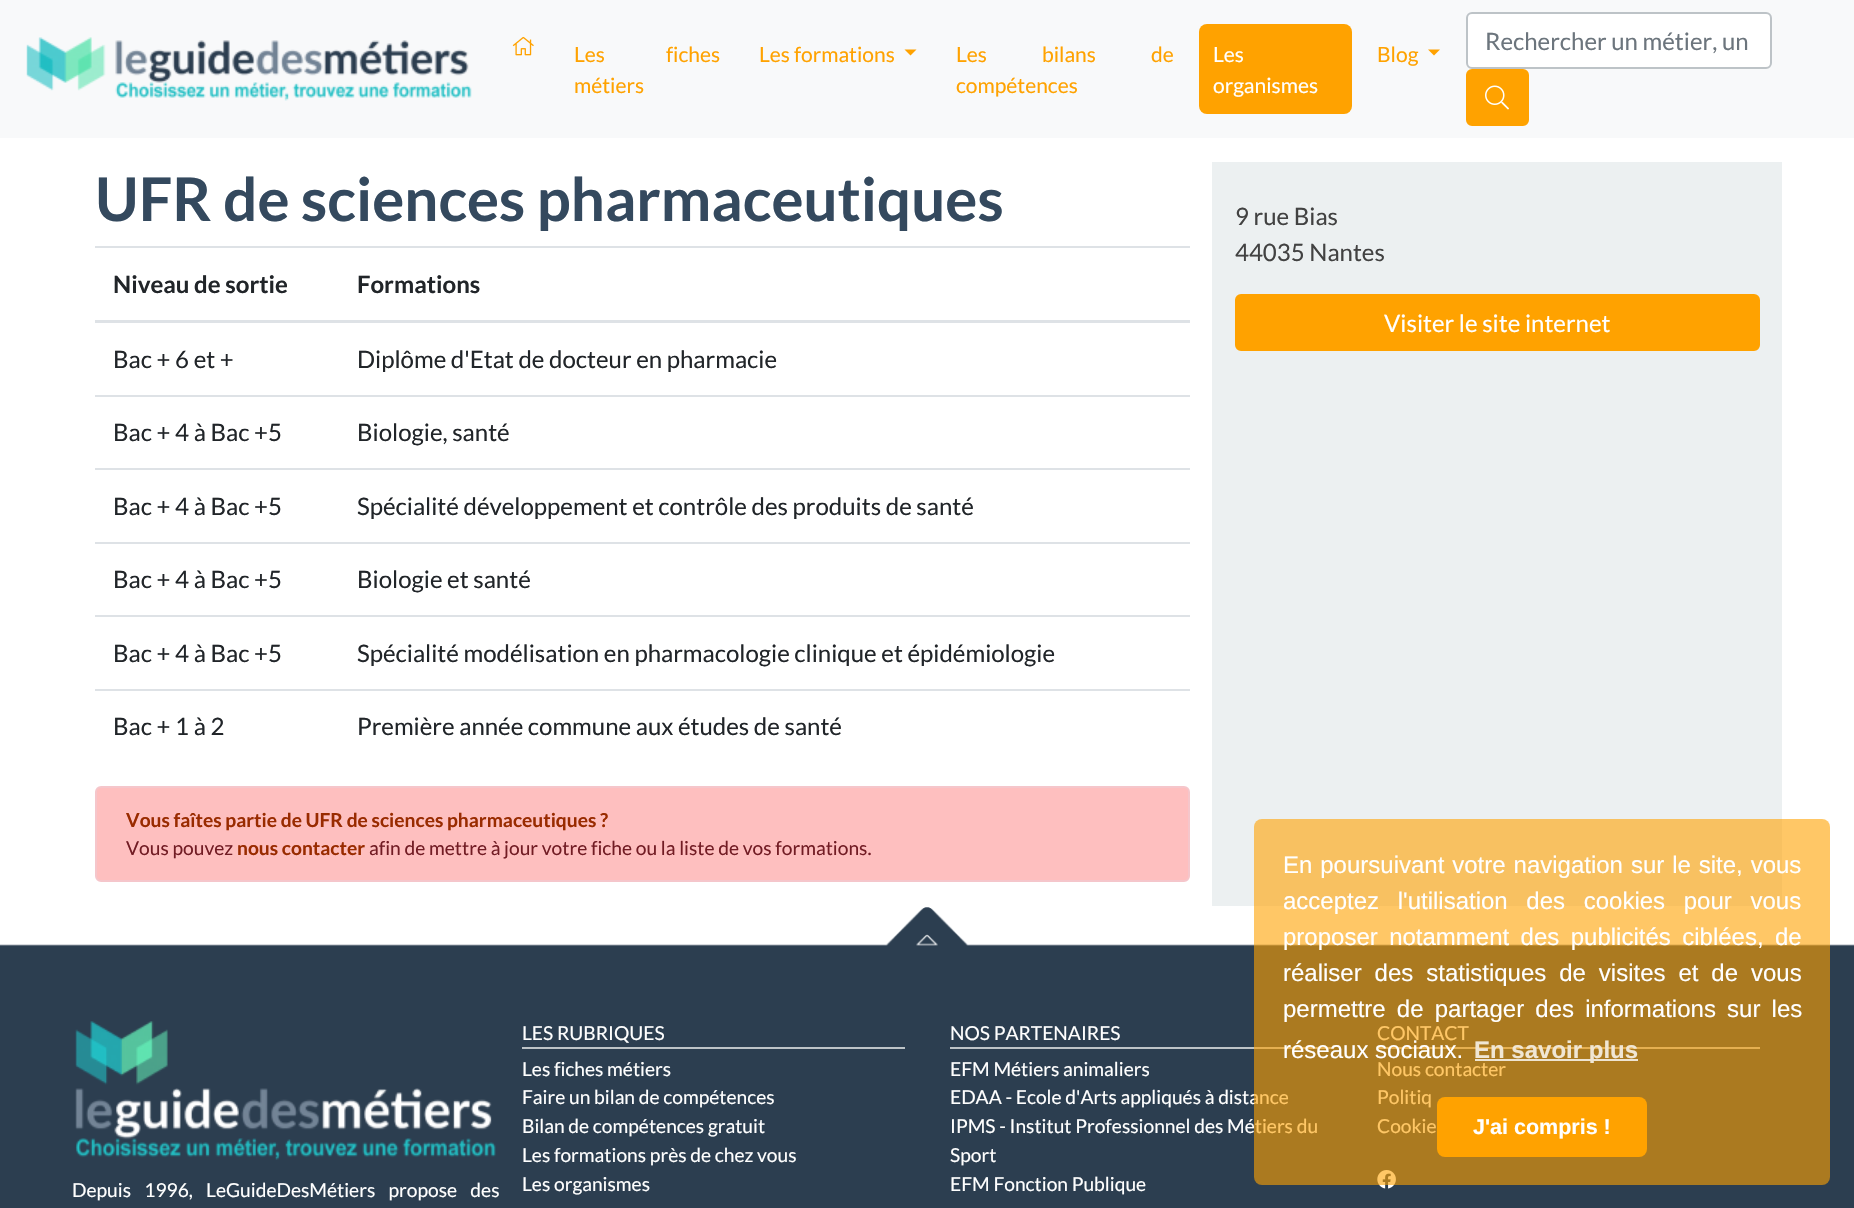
#include "include/core/SkBlurTypes.h"
#include "include/core/SkCanvas.h"
#include "include/core/SkData.h"
#include "include/core/SkFont.h"
#include "include/core/SkFontMgr.h"
#include "include/core/SkImage.h"
#include "include/core/SkMaskFilter.h"
#include "include/core/SkPaint.h"
#include "include/core/SkPathBuilder.h"
#include "include/core/SkTextBlob.h"
#include "include/effects/SkDashPathEffect.h"
#include "include/effects/SkGradientShader.h"
#include "include/utils/SkParsePath.h"

extern sk_sp<SkFontMgr> fontMgr;

void draw(SkCanvas* canvas) {
  SkPaint p;
  p.setAntiAlias(true);
  auto spacedText = [&](const char* s, float x, float y, const SkFont& font, const SkPaint& ink, float letter, float word) {
    std::vector<SkGlyphID> glyphs(font.countText(s, strlen(s), SkTextEncoding::kUTF8));
    std::vector<float> xs(glyphs.size());
    font.textToGlyphs(s, strlen(s), SkTextEncoding::kUTF8, glyphs);
    font.getXPos(glyphs, xs, x);
    float extra = 0;
    for (size_t i = 0; i < glyphs.size(); i++) {
      xs[i] += extra;
      extra += letter + word * (glyphs[i] == font.unicharToGlyph(' '));
    }
    canvas->drawTextBlob(SkTextBlob::MakeFromPosHGlyphs(glyphs, xs, y, font), 0, 0, ink);
  };
  canvas->clear(SK_ColorWHITE);
  p.setColor(SkColorSetRGB(248, 249, 250));
  canvas->drawRect(SkRect::MakeLTRB(0, 0, 1854, 138), p);
  canvas->drawImageRect(SkImages::DeferredFromEncodedData(SkData::MakeFromFileName("images/1.png")), SkRect::MakeLTRB(26, 37, 472, 101), SkSamplingOptions());
  p.setColor(SK_ColorWHITE);
  canvas->drawRoundRect(SkRect::MakeLTRB(1467, 13, 1771, 68), 5, 5, p);
  p.setStyle(SkPaint::kStroke_Style);
  p.setStrokeWidth(2);
  p.setColor(SkColorSetRGB(189, 195, 199));
  canvas->drawRoundRect(SkRect::MakeLTRB(1467, 13, 1771, 68), 5, 5, p);
  p.setStyle(SkPaint::kFill_Style);
  p.setColor(SkColorSetRGB(255, 162, 0));
  canvas->drawRoundRect(SkRect::MakeLTRB(1467, 70, 1528, 125), 5, 5, p);
  p.setStyle(SkPaint::kStroke_Style);
  canvas->drawRoundRect(SkRect::MakeLTRB(1467, 70, 1528, 125), 5, 5, p);
  canvas->drawImageRect(SkImages::DeferredFromEncodedData(SkData::MakeFromFileName("images/2.png")), SkRect::MakeLTRB(1485, 85, 1509, 110), SkSamplingOptions());
  canvas->drawImageRect(SkImages::DeferredFromEncodedData(SkData::MakeFromFileName("images/3.png")), SkRect::MakeLTRB(512, 36, 534, 56), SkSamplingOptions());
  p.setStyle(SkPaint::kFill_Style);
  canvas->drawPath(SkPathBuilder().moveTo(904.5f, 49.5f).lineTo(916.5f, 49.5f).lineTo(910.5f, 55.5f).close().detach(), p);
  canvas->drawRoundRect(SkRect::MakeLTRB(1199, 24, 1352, 114), 8, 8, p);
  canvas->drawPath(SkPathBuilder().moveTo(1428, 49.5f).lineTo(1440, 49.5f).lineTo(1434, 55.5f).close().detach(), p);
  p.setColor(SkColorSetRGB(222, 226, 230));
  canvas->drawRect(SkRect::MakeLTRB(95, 246, 1190, 248), p);
  canvas->drawRect(SkRect::MakeLTRB(95, 320, 1190, 323), p);
  canvas->drawRect(SkRect::MakeLTRB(95, 395, 1190, 397), p);
  canvas->drawRect(SkRect::MakeLTRB(95, 468, 1190, 470), p);
  canvas->drawRect(SkRect::MakeLTRB(95, 542, 1190, 544), p);
  canvas->drawRect(SkRect::MakeLTRB(95, 615, 1190, 617), p);
  canvas->drawRect(SkRect::MakeLTRB(95, 689, 1190, 691), p);
  p.setColor(SkColorSetRGB(254, 191, 191));
  canvas->drawRoundRect(SkRect::MakeLTRB(96, 787, 1189, 881), 5, 5, p);
  p.setStyle(SkPaint::kStroke_Style);
  p.setColor(SkColorSetRGB(245, 198, 203));
  canvas->drawRoundRect(SkRect::MakeLTRB(96, 787, 1189, 881), 5, 5, p);
  p.setStyle(SkPaint::kFill_Style);
  p.setColor(SkColorSetRGB(236, 240, 241));
  canvas->drawRect(SkRect::MakeLTRB(1212, 162, 1782, 906), p);
  p.setColor(SkColorSetRGB(255, 162, 0));
  canvas->drawRoundRect(SkRect::MakeLTRB(1236, 295, 1759, 350), 5, 5, p);
  p.setStyle(SkPaint::kStroke_Style);
  canvas->drawRoundRect(SkRect::MakeLTRB(1236, 295, 1759, 350), 5, 5, p);
  p.setStyle(SkPaint::kFill_Style);
  p.setColor(SkColorSetRGB(44, 62, 80));
  canvas->drawRect(SkRect::MakeLTRB(0, 907, 1854, 1208), p);
  canvas->drawImageRect(SkImages::DeferredFromEncodedData(SkData::MakeFromFileName("images/4.png")), SkRect::MakeLTRB(0, 906, 1854, 946), SkSamplingOptions());
  p.setColor(SkColorSetRGB(189, 195, 199));
  canvas->drawRect(SkRect::MakeLTRB(522, 1047, 905, 1049), p);
  canvas->drawRect(SkRect::MakeLTRB(950, 1047, 1332, 1049), p);
  canvas->drawRect(SkRect::MakeLTRB(1377, 1047, 1760, 1049), p);
  canvas->drawImageRect(SkImages::DeferredFromEncodedData(SkData::MakeFromFileName("images/5.png")), SkRect::MakeLTRB(1377, 1170, 1396, 1189), SkSamplingOptions());
  canvas->drawImageRect(SkImages::DeferredFromEncodedData(SkData::MakeFromFileName("images/6.png")), SkRect::MakeLTRB(75, 1021, 496, 1160), SkSamplingOptions());
  SkFont font1(fontMgr->matchFamilyStyle("Lato", SkFontStyle::Normal()), 24);
  font1.setSubpixel(true);
  p.setColor(SkColorSetRGB(108, 117, 125));
  canvas->drawString("Rechercher un métier, un", 1485, 50, font1, p);
  SkFont font2(fontMgr->matchFamilyStyle("Lato", SkFontStyle::Normal()), 21);
  font2.setSubpixel(true);
  p.setColor(SkColorSetRGB(255, 162, 0));
  spacedText("Les fiches", 574, 62, font2, p, 0, 57);
  canvas->drawString("métiers", 574, 93, font2, p);
  canvas->drawString("Les formations", 759, 62, font2, p);
  spacedText("Les bilans de", 956, 62, font2, p, 0, 51);
  canvas->drawString("compétences", 956, 93, font2, p);
  p.setColor(SK_ColorWHITE);
  canvas->drawString("Les", 1213, 62, font2, p);
  canvas->drawString("organismes", 1213, 93, font2, p);
  p.setColor(SkColorSetRGB(255, 162, 0));
  canvas->drawString("Blog", 1377, 62, font2, p);
  SkFont font3(fontMgr->matchFamilyStyle("Lato", SkFontStyle::Bold()), 60);
  font3.setSubpixel(true);
  p.setColor(SkColorSetRGB(52, 73, 94));
  canvas->drawString("UFR de sciences pharmaceutiques", 95, 221, font3, p);
  SkFont font4(fontMgr->matchFamilyStyle("Lato", SkFontStyle::Bold()), 24);
  font4.setSubpixel(true);
  p.setColor(SkColorSetRGB(33, 37, 41));
  canvas->drawString("Niveau de sortie", 113, 293, font4, p);
  canvas->drawString("Formations", 357, 293, font4, p);
  canvas->drawString("Bac + 6 et +", 113, 368, font1, p);
  canvas->drawString("Diplôme d'Etat de docteur en pharmacie", 357, 368, font1, p);
  canvas->drawString("Bac + 4 à Bac +5", 113, 441, font1, p);
  canvas->drawString("Biologie, santé", 357, 441, font1, p);
  canvas->drawString("Bac + 4 à Bac +5", 113, 515, font1, p);
  canvas->drawString("Spécialité développement et contrôle des produits de santé", 357, 515, font1, p);
  canvas->drawString("Bac + 4 à Bac +5", 113, 588, font1, p);
  canvas->drawString("Biologie et santé", 357, 588, font1, p);
  canvas->drawString("Bac + 4 à Bac +5", 113, 662, font1, p);
  canvas->drawString("Spécialité modélisation en pharmacologie clinique et épidémiologie", 357, 662, font1, p);
  canvas->drawString("Bac + 1 à 2", 113, 735, font1, p);
  canvas->drawString("Première année commune aux études de santé", 357, 735, font1, p);
  SkFont font5(fontMgr->matchFamilyStyle("Lato", SkFontStyle::Bold()), 19.2f);
  font5.setSubpixel(true);
  p.setColor(SkColorSetRGB(153, 43, 0));
  canvas->drawString("Vous faîtes partie de UFR de sciences pharmaceutiques ?", 126, 827, font5, p);
  SkFont font6(fontMgr->matchFamilyStyle("Lato", SkFontStyle::Normal()), 19.2f);
  font6.setSubpixel(true);
  p.setColor(SkColorSetRGB(114, 28, 36));
  canvas->drawString("Vous pouvez", 126, 855, font6, p);
  p.setColor(SkColorSetRGB(153, 43, 0));
  canvas->drawString("nous contacter", 237, 855, font5, p);
  p.setColor(SkColorSetRGB(114, 28, 36));
  canvas->drawString("afin de mettre à jour votre fiche ou la liste de vos formations.", 369, 855, font6, p);
  p.setColor(SkColorSetRGB(66, 66, 66));
  canvas->drawString("9 rue Bias", 1235, 225, font1, p);
  canvas->drawString("44035 Nantes", 1235, 261, font1, p);
  p.setColor(SK_ColorWHITE);
  canvas->drawString("Visiter le site internet", 1384, 332, font1, p);
  canvas->drawString("LES RUBRIQUES", 522, 1040, font6, p);
  canvas->drawString("Les fiches métiers", 522, 1076, font6, p);
  canvas->drawString("Faire un bilan de compétences", 522, 1104, font6, p);
  canvas->drawString("Bilan de compétences gratuit", 522, 1133, font6, p);
  canvas->drawString("Les formations près de chez vous", 522, 1162, font6, p);
  canvas->drawString("Les organismes", 522, 1191, font6, p);
  canvas->drawString("NOS PARTENAIRES", 950, 1040, font6, p);
  canvas->drawString("EFM Métiers animaliers", 950, 1076, font6, p);
  canvas->drawString("EDAA - Ecole d'Arts appliqués à distance", 950, 1104, font6, p);
  canvas->drawString("IPMS - Institut Professionnel des Métiers du", 950, 1133, font6, p);
  canvas->drawString("Sport", 950, 1162, font6, p);
  canvas->drawString("EFM Fonction Publique", 950, 1191, font6, p);
  canvas->drawString("CONTACT", 1377, 1040, font6, p);
  canvas->drawString("Nous contacter", 1377, 1076, font6, p);
  canvas->drawString("Politiq", 1377, 1104, font6, p);
  canvas->drawString("Cookie", 1377, 1133, font6, p);
  spacedText("Depuis 1996, LeGuideDesMétiers propose des", 72, 1197, font6, p, 0, 9.5f);
  p.setColor(SkColorSetARGB(153, 255, 162, 0));
  canvas->drawRoundRect(SkRect::MakeLTRB(1254, 819, 1830, 1185), 8, 8, p);
  SkFont font7(fontMgr->matchFamilyStyle("Liberation Sans", SkFontStyle::Normal()), 24);
  font7.setSubpixel(true);
  p.setColor(SK_ColorWHITE);
  spacedText("En poursuivant votre navigation sur le site, vous", 1283, 873, font7, p, 0, 1.25f);
  spacedText("acceptez l'utilisation des cookies pour vous", 1283, 909, font7, p, 0, 12);
  spacedText("proposer notamment des publicités ciblées, de", 1283, 945, font7, p, 0, 4.75f);
  spacedText("réaliser des statistiques de visites et de vous", 1283, 981, font7, p, 0, 6.25f);
  spacedText("permettre de partager des informations sur les", 1283, 1017, font7, p, 0, 4.5f);
  canvas->drawString("réseaux sociaux.", 1283, 1058, font7, p);
  p.setColor(SkColorSetRGB(238, 228, 210));
  canvas->drawRect(SkRect::MakeLTRB(1475, 1059, 1638, 1061), p);
  SkFont font8(fontMgr->matchFamilyStyle("Liberation Sans", SkFontStyle::Bold()), 24);
  font8.setSubpixel(true);
  p.setColor(SkColorSetRGB(240, 230, 212));
  canvas->drawString("En savoir plus", 1474, 1058, font8, p);
  p.setColor(SkColorSetRGB(255, 162, 0));
  canvas->drawRoundRect(SkRect::MakeLTRB(1437, 1097, 1647, 1157), 8, 8, p);
  SkFont font9(fontMgr->matchFamilyStyle("Liberation Sans", SkFontStyle::Bold()), 21.5f);
  font9.setSubpixel(true);
  p.setColor(SK_ColorWHITE);
  canvas->drawString("J'ai compris !", 1473, 1134, font9, p);
}
